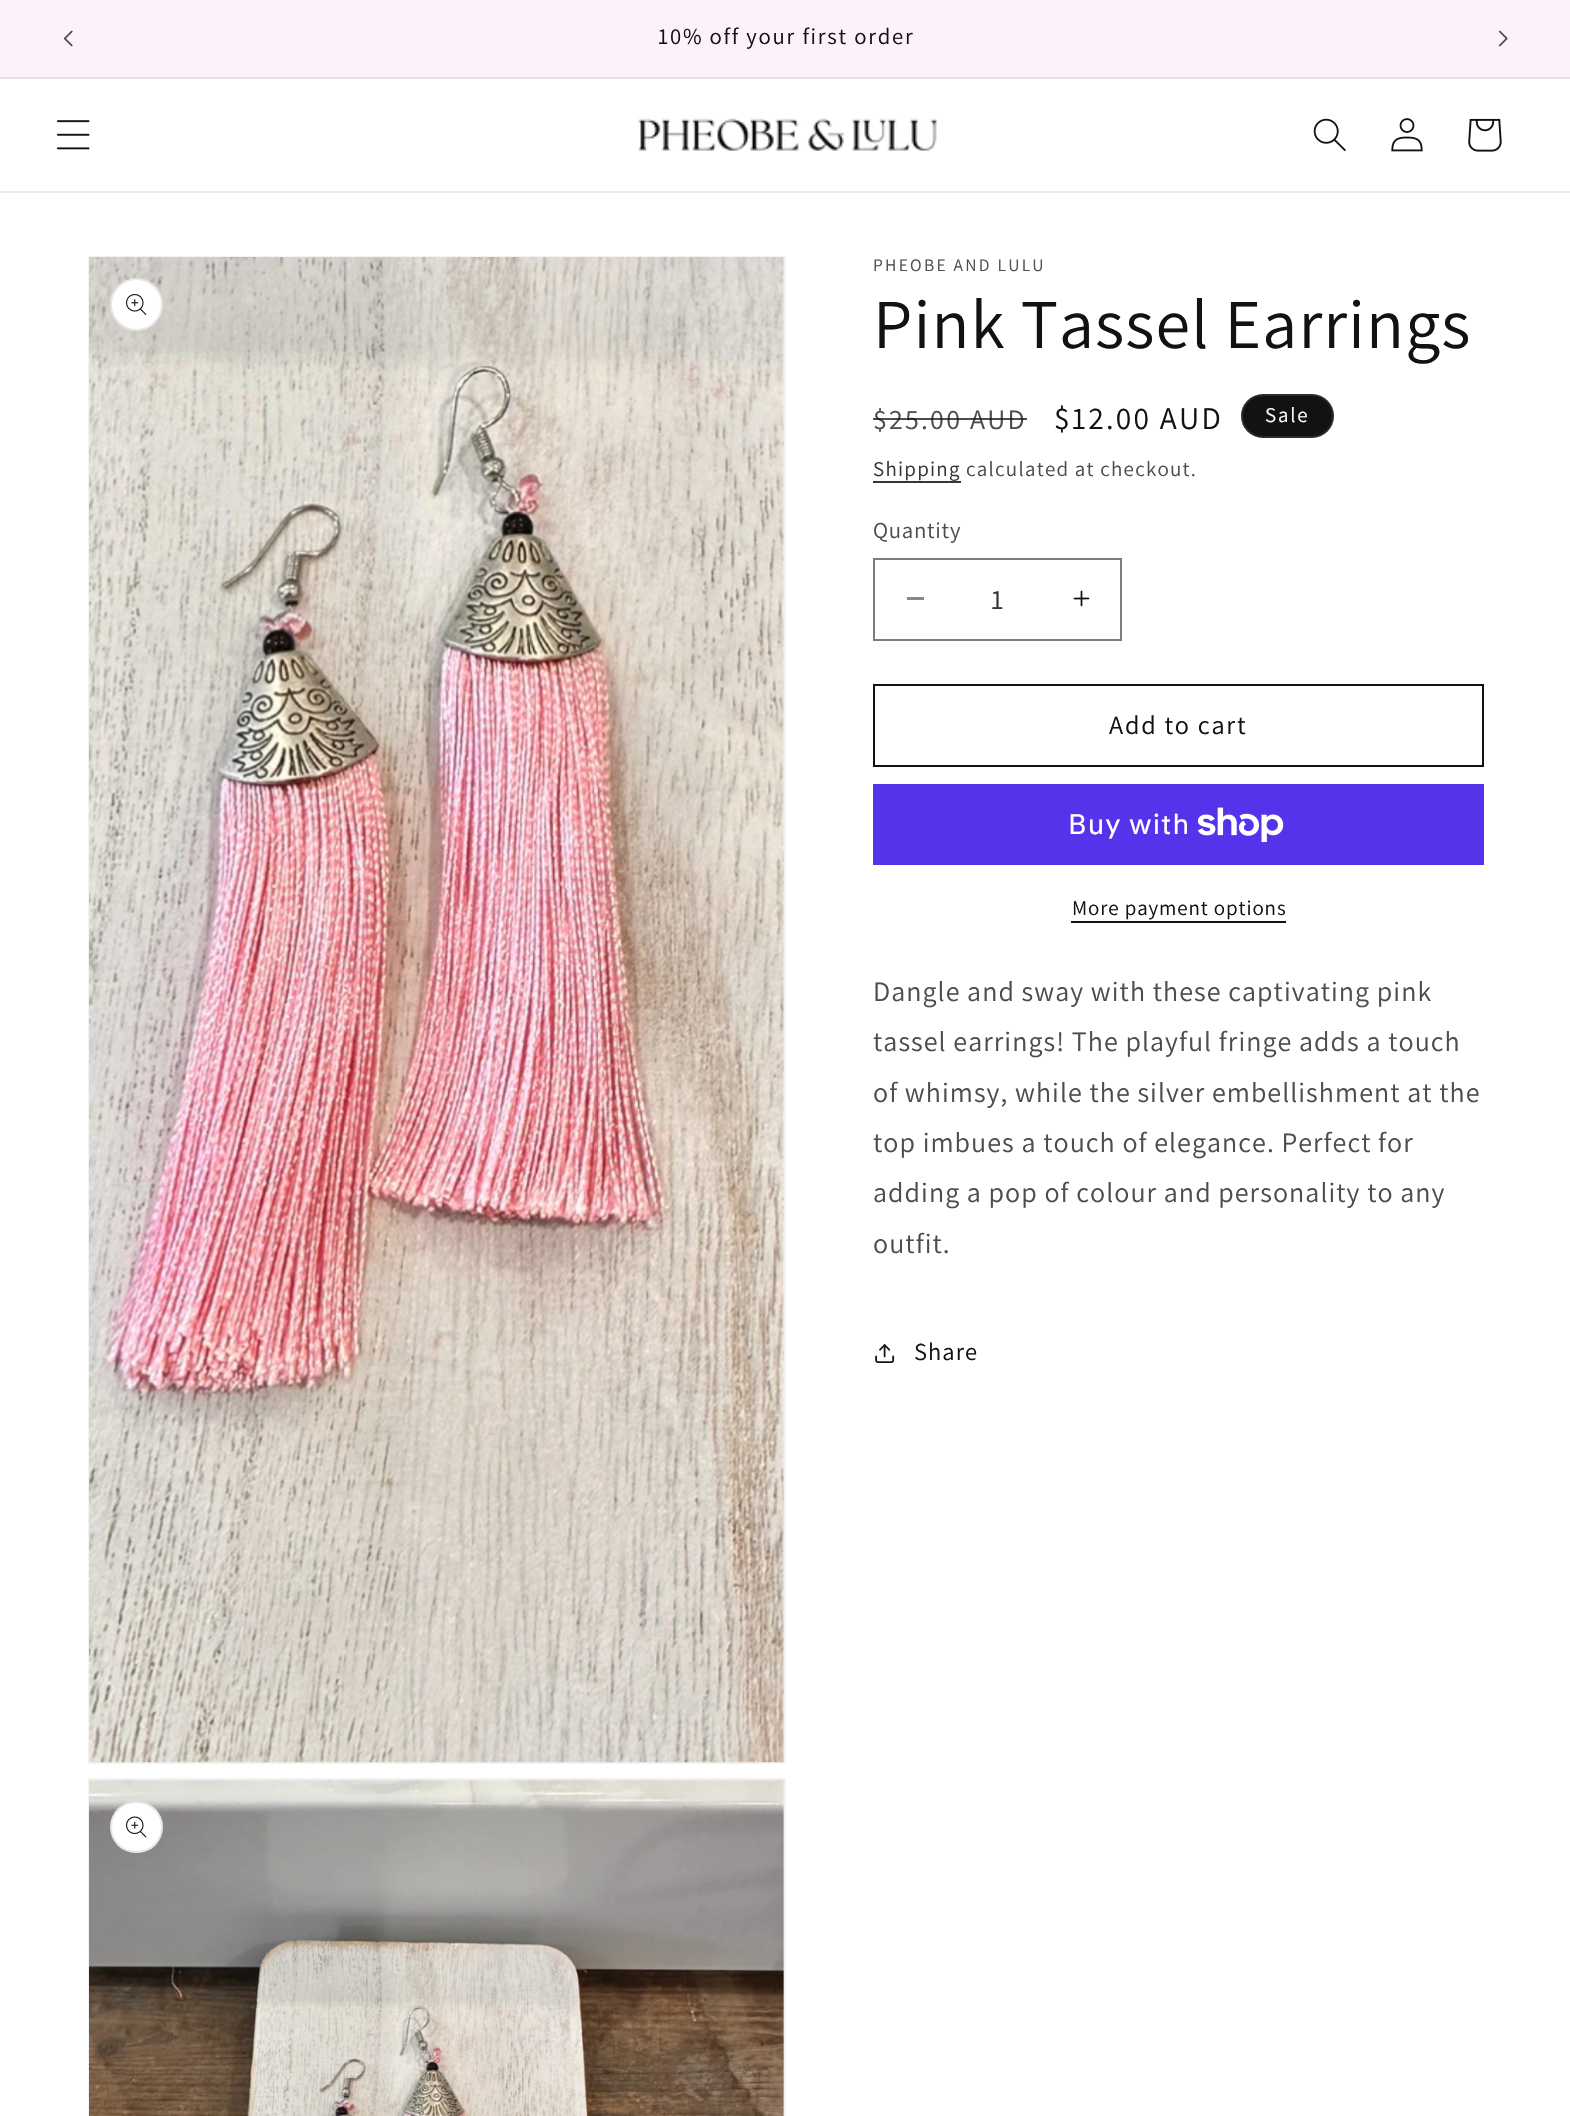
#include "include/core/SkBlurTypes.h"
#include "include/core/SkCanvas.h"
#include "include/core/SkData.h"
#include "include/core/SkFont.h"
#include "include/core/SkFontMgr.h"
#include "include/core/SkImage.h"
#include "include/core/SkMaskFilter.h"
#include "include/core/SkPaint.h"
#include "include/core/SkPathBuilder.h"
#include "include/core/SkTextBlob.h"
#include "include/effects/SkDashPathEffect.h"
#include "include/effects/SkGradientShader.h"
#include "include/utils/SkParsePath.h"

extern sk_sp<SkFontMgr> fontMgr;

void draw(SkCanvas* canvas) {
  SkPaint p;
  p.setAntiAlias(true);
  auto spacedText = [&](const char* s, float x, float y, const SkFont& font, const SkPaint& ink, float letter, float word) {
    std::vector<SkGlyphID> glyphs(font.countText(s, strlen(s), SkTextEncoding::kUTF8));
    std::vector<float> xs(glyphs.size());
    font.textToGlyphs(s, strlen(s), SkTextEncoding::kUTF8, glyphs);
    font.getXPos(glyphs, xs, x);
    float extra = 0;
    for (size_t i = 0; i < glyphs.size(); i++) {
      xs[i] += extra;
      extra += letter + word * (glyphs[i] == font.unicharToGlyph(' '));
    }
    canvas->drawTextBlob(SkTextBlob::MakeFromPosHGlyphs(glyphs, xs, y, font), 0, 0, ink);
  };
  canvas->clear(SK_ColorWHITE);
  p.setColor(SkColorSetRGB(253, 242, 249));
  canvas->drawRect(SkRect::MakeLTRB(0, 0, 1570, 77), p);
  p.setColor(SkColorSetRGB(234, 224, 231));
  canvas->drawRect(SkRect::MakeLTRB(0, 77, 1570, 79), p);
  canvas->drawImageRect(SkImages::DeferredFromEncodedData(SkData::MakeFromFileName("images/1.png")), SkRect::MakeLTRB(63, 30, 73, 47), SkSamplingOptions());
  canvas->drawImageRect(SkImages::DeferredFromEncodedData(SkData::MakeFromFileName("images/2.png")), SkRect::MakeLTRB(1498, 30, 1508, 47), SkSamplingOptions());
  p.setColor(SkColorSetRGB(236, 236, 236));
  canvas->drawRect(SkRect::MakeLTRB(0, 191, 1570, 193), p);
  canvas->drawImageRect(SkImages::DeferredFromEncodedData(SkData::MakeFromFileName("images/3.png")), SkRect::MakeLTRB(57, 120, 90, 150), SkSamplingOptions());
  canvas->drawImageRect(SkImages::DeferredFromEncodedData(SkData::MakeFromFileName("images/4.png")), SkRect::MakeLTRB(638, 118, 937, 151), SkSamplingOptions());
  canvas->drawImageRect(SkImages::DeferredFromEncodedData(SkData::MakeFromFileName("images/5.png")), SkRect::MakeLTRB(1313, 118, 1346, 152), SkSamplingOptions());
  canvas->drawImageRect(SkImages::DeferredFromEncodedData(SkData::MakeFromFileName("images/6.png")), SkRect::MakeLTRB(1391, 118, 1423, 152), SkSamplingOptions());
  canvas->drawImageRect(SkImages::DeferredFromEncodedData(SkData::MakeFromFileName("images/7.png")), SkRect::MakeLTRB(1468, 118, 1502, 152), SkSamplingOptions());
  p.setStyle(SkPaint::kStroke_Style);
  p.setStrokeWidth(2);
  p.setColor(SkColorSetRGB(243, 243, 243));
  canvas->drawRect(SkRect::MakeLTRB(89, 257, 785, 1763), p);
  canvas->drawImageRect(SkImages::DeferredFromEncodedData(SkData::MakeFromFileName("images/8.png")), SkRect::MakeLTRB(89, 257, 784, 1763), SkSamplingOptions());
  p.setStyle(SkPaint::kFill_Style);
  p.setColor(SK_ColorWHITE);
  canvas->drawCircle(136.5f, 304.5f, 26.5f, p);
  p.setStyle(SkPaint::kStroke_Style);
  p.setColor(SkColorSetARGB(26, 18, 18, 18));
  canvas->drawCircle(136.5f, 304.5f, 25.5f, p);
  canvas->drawImageRect(SkImages::DeferredFromEncodedData(SkData::MakeFromFileName("images/9.png")), SkRect::MakeLTRB(126, 294, 147, 315), SkSamplingOptions());
  p.setColor(SkColorSetRGB(243, 243, 243));
  canvas->drawRect(SkRect::MakeLTRB(89, 1779, 785, 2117), p);
  canvas->drawImageRect(SkImages::DeferredFromEncodedData(SkData::MakeFromFileName("images/10.png")), SkRect::MakeLTRB(89, 1779, 784, 2116), SkSamplingOptions());
  p.setStyle(SkPaint::kFill_Style);
  p.setColor(SK_ColorWHITE);
  canvas->drawRoundRect(SkRect::MakeLTRB(110, 1801, 163, 1853), 26, 26, p);
  p.setStyle(SkPaint::kStroke_Style);
  p.setColor(SkColorSetARGB(26, 18, 18, 18));
  canvas->drawRoundRect(SkRect::MakeLTRB(111, 1802, 162, 1852), 25, 25, p);
  canvas->drawImageRect(SkImages::DeferredFromEncodedData(SkData::MakeFromFileName("images/11.png")), SkRect::MakeLTRB(126, 1816, 147, 1838), SkSamplingOptions());
  p.setStyle(SkPaint::kFill_Style);
  p.setColor(SkColorSetRGB(18, 18, 18));
  canvas->drawRoundRect(SkRect::MakeLTRB(1241, 394, 1334, 438), 22, 22, p);
  p.setStyle(SkPaint::kStroke_Style);
  p.setColor(SkColorSetARGB(26, 255, 255, 255));
  canvas->drawRoundRect(SkRect::MakeLTRB(1242, 395, 1333, 437), 21, 21, p);
  p.setStyle(SkPaint::kFill_Style);
  p.setColor(SkColorSetRGB(54, 54, 54));
  canvas->drawRect(SkRect::MakeLTRB(873, 481, 961, 483), p);
  p.setColor(SkColorSetRGB(137, 137, 137));
  canvas->drawRect(SkRect::MakeLTRB(907, 597, 924, 600), p);
  canvas->drawImageRect(SkImages::DeferredFromEncodedData(SkData::MakeFromFileName("images/12.png")), SkRect::MakeLTRB(1073, 590, 1090, 607), SkSamplingOptions());
  p.setStyle(SkPaint::kStroke_Style);
  p.setColor(SkColorSetRGB(125, 125, 125));
  canvas->drawRect(SkRect::MakeLTRB(874, 559, 1121, 640), p);
  p.setColor(SkColorSetRGB(18, 18, 18));
  canvas->drawRect(SkRect::MakeLTRB(874, 685, 1483, 766), p);
  p.setStyle(SkPaint::kFill_Style);
  p.setColor(SkColorSetRGB(84, 51, 235));
  canvas->drawRect(SkRect::MakeLTRB(873, 784, 1484, 865), p);
  canvas->drawImageRect(SkImages::DeferredFromEncodedData(SkData::MakeFromFileName("images/13.png")), SkRect::MakeLTRB(1198, 807, 1284, 842), SkSamplingOptions());
  p.setColor(SkColorSetRGB(18, 18, 18));
  canvas->drawRect(SkRect::MakeLTRB(1071, 921, 1286, 923), p);
  canvas->drawImageRect(SkImages::DeferredFromEncodedData(SkData::MakeFromFileName("images/14.png")), SkRect::MakeLTRB(875, 1344, 895, 1363), SkSamplingOptions());
  SkFont font1(fontMgr->matchFamilyStyle("Assistant", SkFontStyle::Normal()), 22.75f);
  font1.setSubpixel(true);
  spacedText("10% off your first order", 658, 44, font1, p, 1.75f, 0);
  SkFont font2(fontMgr->matchFamilyStyle("Assistant", SkFontStyle::Normal()), 17.5f);
  font2.setSubpixel(true);
  p.setColor(SkColorSetRGB(77, 77, 77));
  spacedText("PHEOBE AND LULU", 873, 271, font2, p, 2.25f, 0);
  SkFont font3(fontMgr->matchFamilyStyle("Assistant", SkFontStyle::Normal()), 70);
  font3.setSubpixel(true);
  p.setColor(SkColorSetRGB(18, 18, 18));
  spacedText("Pink Tassel Earrings", 873, 348, font3, p, 1.05f, 0);
  SkFont font4(fontMgr->matchFamilyStyle("Assistant", SkFontStyle::Normal()), 28);
  font4.setSubpixel(true);
  p.setColor(SkColorSetRGB(77, 77, 77));
  spacedText("$25.00 AUD", 873, 429, font4, p, 2.25f, 0);
  p.setColor(SkColorSetARGB(191, 18, 18, 18));
  canvas->drawRect(SkRect::MakeLTRB(873, 418, 1027, 420), p);
  SkFont font5(fontMgr->matchFamilyStyle("Assistant", SkFontStyle::Normal()), 31.5f);
  font5.setSubpixel(true);
  p.setColor(SkColorSetRGB(18, 18, 18));
  spacedText("$12.00 AUD", 1054, 429, font5, p, 2.25f, 0);
  SkFont font6(fontMgr->matchFamilyStyle("Assistant", SkFontStyle::Normal()), 21);
  font6.setSubpixel(true);
  p.setColor(SK_ColorWHITE);
  spacedText("Sale", 1265, 422, font6, p, 1.75f, 0);
  p.setColor(SkColorSetRGB(54, 54, 54));
  spacedText("Shipping", 873, 476, font6, p, 1.25f, 0);
  p.setColor(SkColorSetRGB(77, 77, 77));
  spacedText("calculated at checkout.", 966, 476, font6, p, 1.25f, 0);
  spacedText("Quantity", 873, 538, font1, p, 0.75f, 0);
  p.setColor(SkColorSetRGB(54, 54, 54));
  canvas->drawString("1", 991, 609, font4, p);
  SkFont font7(fontMgr->matchFamilyStyle("Assistant", SkFontStyle::Normal()), 26.25f);
  font7.setSubpixel(true);
  p.setColor(SkColorSetRGB(18, 18, 18));
  spacedText("Add to cart", 1109, 734, font7, p, 1.75f, 0);
  SkFont font8(fontMgr->matchFamilyStyle("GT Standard", SkFontStyle::Normal()), 28);
  font8.setSubpixel(true);
  p.setColor(SK_ColorWHITE);
  spacedText("Buy with", 1068, 834, font8, p, 1.05f, 0);
  p.setColor(SkColorSetRGB(18, 18, 18));
  spacedText("More payment options", 1072, 915, font6, p, 0.9f, 0);
  p.setColor(SkColorSetRGB(77, 77, 77));
  spacedText("Dangle and sway with these captivating pink", 873, 1001, font4, p, 1.05f, 0);
  spacedText("tassel earrings! The playful fringe adds a touch", 873, 1051, font4, p, 1.05f, 0);
  spacedText("of whimsy, while the silver embellishment at the", 873, 1102, font4, p, 1.05f, 0);
  spacedText("top imbues a touch of elegance. Perfect for", 873, 1152, font4, p, 1.05f, 0);
  spacedText("adding a pop of colour and personality to any", 873, 1202, font4, p, 1.05f, 0);
  spacedText("outfit.", 873, 1253, font4, p, 1.05f, 0);
  SkFont font9(fontMgr->matchFamilyStyle("Assistant", SkFontStyle::Normal()), 24.5f);
  font9.setSubpixel(true);
  p.setColor(SkColorSetRGB(18, 18, 18));
  spacedText("Share", 914, 1360, font9, p, 1.05f, 0);
}
